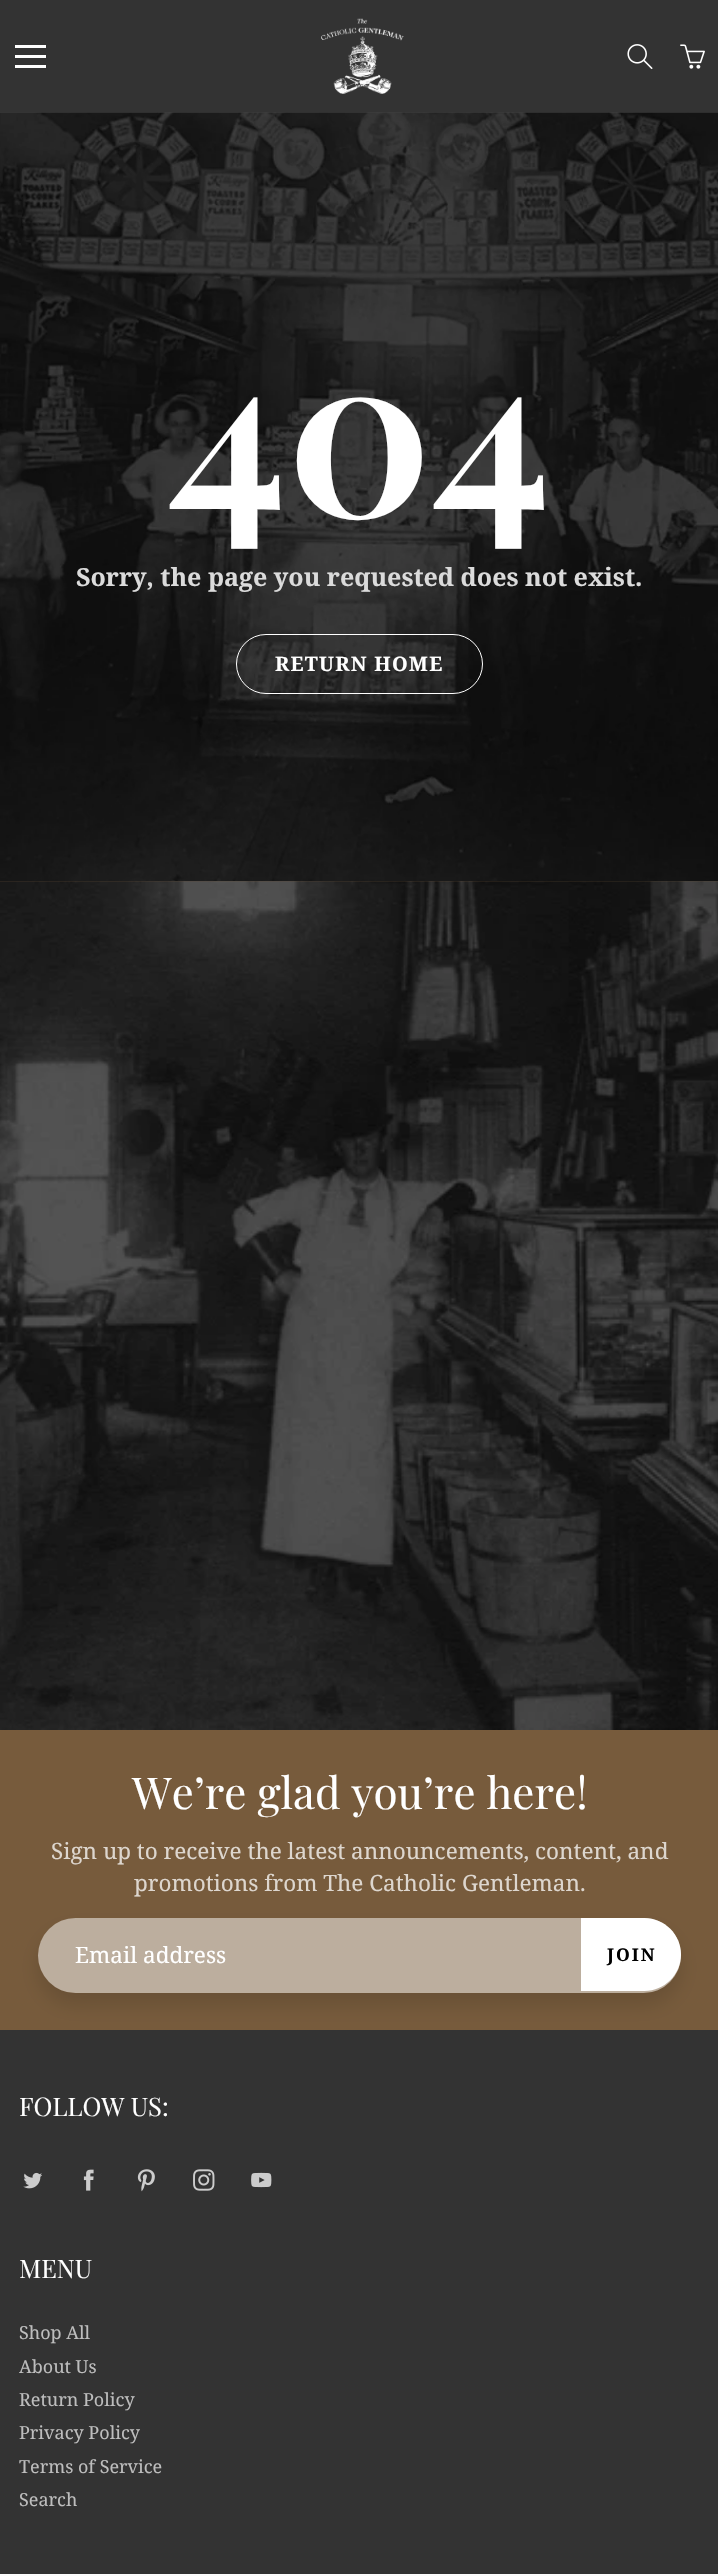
#include "include/core/SkBlurTypes.h"
#include "include/core/SkCanvas.h"
#include "include/core/SkData.h"
#include "include/core/SkFont.h"
#include "include/core/SkFontMgr.h"
#include "include/core/SkImage.h"
#include "include/core/SkMaskFilter.h"
#include "include/core/SkPaint.h"
#include "include/core/SkPathBuilder.h"
#include "include/core/SkTextBlob.h"
#include "include/effects/SkDashPathEffect.h"
#include "include/effects/SkGradientShader.h"
#include "include/utils/SkParsePath.h"

extern sk_sp<SkFontMgr> fontMgr;

void draw(SkCanvas* canvas) {
  SkPaint p;
  p.setAntiAlias(true);
  auto spacedText = [&](const char* s, float x, float y, const SkFont& font, const SkPaint& ink, float letter, float word) {
    std::vector<SkGlyphID> glyphs(font.countText(s, strlen(s), SkTextEncoding::kUTF8));
    std::vector<float> xs(glyphs.size());
    font.textToGlyphs(s, strlen(s), SkTextEncoding::kUTF8, glyphs);
    font.getXPos(glyphs, xs, x);
    float extra = 0;
    for (size_t i = 0; i < glyphs.size(); i++) {
      xs[i] += extra;
      extra += letter + word * (glyphs[i] == font.unicharToGlyph(' '));
    }
    canvas->drawTextBlob(SkTextBlob::MakeFromPosHGlyphs(glyphs, xs, y, font), 0, 0, ink);
  };
  canvas->clear(SkColorSetRGB(51, 51, 51));
  p.setColor(SK_ColorWHITE);
  canvas->drawRect(SkRect::MakeLTRB(15, 55, 46, 58), p);
  canvas->drawRect(SkRect::MakeLTRB(15, 45, 46, 48), p);
  canvas->drawRect(SkRect::MakeLTRB(15, 65, 46, 68), p);
  canvas->drawImageRect(SkImages::DeferredFromEncodedData(SkData::MakeFromFileName("images/1.png")), SkRect::MakeLTRB(321, 18, 404, 94), SkSamplingOptions());
  canvas->drawImageRect(SkImages::DeferredFromEncodedData(SkData::MakeFromFileName("images/2.png")), SkRect::MakeLTRB(627, 44, 653, 69), SkSamplingOptions());
  canvas->drawImageRect(SkImages::DeferredFromEncodedData(SkData::MakeFromFileName("images/3.png")), SkRect::MakeLTRB(680, 44, 705, 69), SkSamplingOptions());
  p.setColor(SkColorSetRGB(119, 91, 60));
  canvas->drawRect(SkRect::MakeLTRB(0, 881, 718, 2030), p);
  canvas->drawImageRect(SkImages::DeferredFromEncodedData(SkData::MakeFromFileName("images/4.png")), SkRect::MakeLTRB(0, 112, 718, 882), SkSamplingOptions());
  p.setStyle(SkPaint::kStroke_Style);
  p.setStrokeWidth(1);
  p.setColor(SK_ColorWHITE);
  canvas->drawRoundRect(SkRect::MakeLTRB(236.5f, 634.5f, 482.5f, 693.5f), 29.5f, 29.5f, p);
  canvas->drawImageRect(SkImages::DeferredFromEncodedData(SkData::MakeFromFileName("images/5.png")), SkRect::MakeLTRB(0, 881, 718, 1730), SkSamplingOptions());
  p.setStyle(SkPaint::kFill_Style);
  p.setColor(SkColorSetARGB(51, 0, 0, 0));
  canvas->drawRect(SkRect::MakeLTRB(0, 881, 718, 1730), p);
  canvas->save();
  canvas->clipPath(SkPathBuilder(SkPathFillType::kEvenOdd).moveTo(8, 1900).lineTo(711, 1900).lineTo(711, 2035).lineTo(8, 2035).close().moveTo(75.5f, 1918).lineTo(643.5f, 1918).cubicTo(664, 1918, 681, 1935, 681, 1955.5f).cubicTo(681, 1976, 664, 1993, 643.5f, 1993).lineTo(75.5f, 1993).cubicTo(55, 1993, 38, 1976, 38, 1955.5f).cubicTo(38, 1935, 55, 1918, 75.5f, 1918).close().detach(), true);
  p.setColor(SkColorSetARGB(31, 0, 0, 0));
  p.setMaskFilter(SkMaskFilter::MakeBlur(kNormal_SkBlurStyle, 9.5f));
  canvas->drawRoundRect(SkRect::MakeLTRB(38, 1930, 681, 2005), 37.5f, 37.5f, p);
  p.setMaskFilter(nullptr);
  canvas->restore();
  p.setColor(SkColorSetARGB(128, 255, 255, 255));
  canvas->drawRoundRect(SkRect::MakeLTRB(38, 1918, 681, 1993), 37.5f, 37.5f, p);
  p.setColor(SK_ColorWHITE);
  canvas->drawPath(SkPathBuilder().moveTo(581, 1918).lineTo(644.5f, 1918).cubicTo(664.5f, 1918, 681, 1934.5f, 681, 1954.5f).cubicTo(681, 1974.5f, 664.5f, 1991, 644.5f, 1991).lineTo(581, 1991).close().detach(), p);
  canvas->drawImageRect(SkImages::DeferredFromEncodedData(SkData::MakeFromFileName("images/6.png")), SkRect::MakeLTRB(23, 2172, 42, 2189), SkSamplingOptions());
  canvas->drawImageRect(SkImages::DeferredFromEncodedData(SkData::MakeFromFileName("images/7.png")), SkRect::MakeLTRB(83, 2169, 94, 2191), SkSamplingOptions());
  canvas->drawImageRect(SkImages::DeferredFromEncodedData(SkData::MakeFromFileName("images/8.png")), SkRect::MakeLTRB(137, 2169, 155, 2192), SkSamplingOptions());
  canvas->drawImageRect(SkImages::DeferredFromEncodedData(SkData::MakeFromFileName("images/9.png")), SkRect::MakeLTRB(193, 2169, 215, 2191), SkSamplingOptions());
  canvas->drawImageRect(SkImages::DeferredFromEncodedData(SkData::MakeFromFileName("images/10.png")), SkRect::MakeLTRB(251, 2172, 272, 2188), SkSamplingOptions());
  SkFont font1(fontMgr->matchFamilyStyle("Playfair Display", SkFontStyle::Bold()), 225);
  font1.setSubpixel(true);
  canvas->drawString("404", 168, 517, font1, p);
  SkFont font2(fontMgr->matchFamilyStyle("Noto Serif", SkFontStyle::Bold()), 25);
  font2.setSubpixel(true);
  p.setColor(SkColorSetRGB(219, 219, 219));
  canvas->drawString("Sorry, the page you requested does not exist.", 76, 586, font2, p);
  SkFont font3(fontMgr->matchFamilyStyle("Noto Serif", SkFontStyle::Bold()), 20);
  font3.setSubpixel(true);
  p.setColor(SK_ColorWHITE);
  spacedText("RETURN HOME", 275, 671, font3, p, 1.25f, 0);
  SkFont font4(fontMgr->matchFamilyStyle("Playfair Display", SkFontStyle::Normal()), 43.9f);
  font4.setSubpixel(true);
  canvas->drawString("We’re glad you’re here!", 132, 1809, font4, p);
  SkFont font5(fontMgr->matchFamilyStyle("Noto Serif", SkFontStyle::Normal()), 22.5f);
  font5.setSubpixel(true);
  p.setColor(SkColorSetRGB(221, 214, 206));
  canvas->drawString("Sign up to receive the latest announcements, content, and", 51, 1859, font5, p);
  canvas->drawString("promotions from The Catholic Gentleman.", 134, 1891, font5, p);
  p.setColor(SK_ColorWHITE);
  canvas->drawString("Email address", 75, 1963, font5, p);
  SkFont font6(fontMgr->matchFamilyStyle("Noto Serif", SkFontStyle::Bold()), 17.5f);
  font6.setSubpixel(true);
  p.setColor(SK_ColorBLACK);
  spacedText("JOIN", 607, 1961, font6, p, 2, 0);
  SkFont font7(fontMgr->matchFamilyStyle("Playfair Display", SkFontStyle::Normal()), 25.5f);
  font7.setSubpixel(true);
  p.setColor(SK_ColorWHITE);
  canvas->drawString("FOLLOW US:", 19, 2116, font7, p);
  canvas->drawString("MENU", 19, 2278, font7, p);
  SkFont font8(fontMgr->matchFamilyStyle("Noto Serif", SkFontStyle::Normal()), 18);
  font8.setSubpixel(true);
  p.setColor(SkColorSetRGB(189, 189, 189));
  canvas->drawString("Shop All", 19, 2339, font8, p);
  canvas->drawString("About Us", 19, 2373, font8, p);
  canvas->drawString("Return Policy", 19, 2406, font8, p);
  canvas->drawString("Privacy Policy", 19, 2439, font8, p);
  canvas->drawString("Terms of Service", 19, 2473, font8, p);
  canvas->drawString("Search", 19, 2506, font8, p);
}
